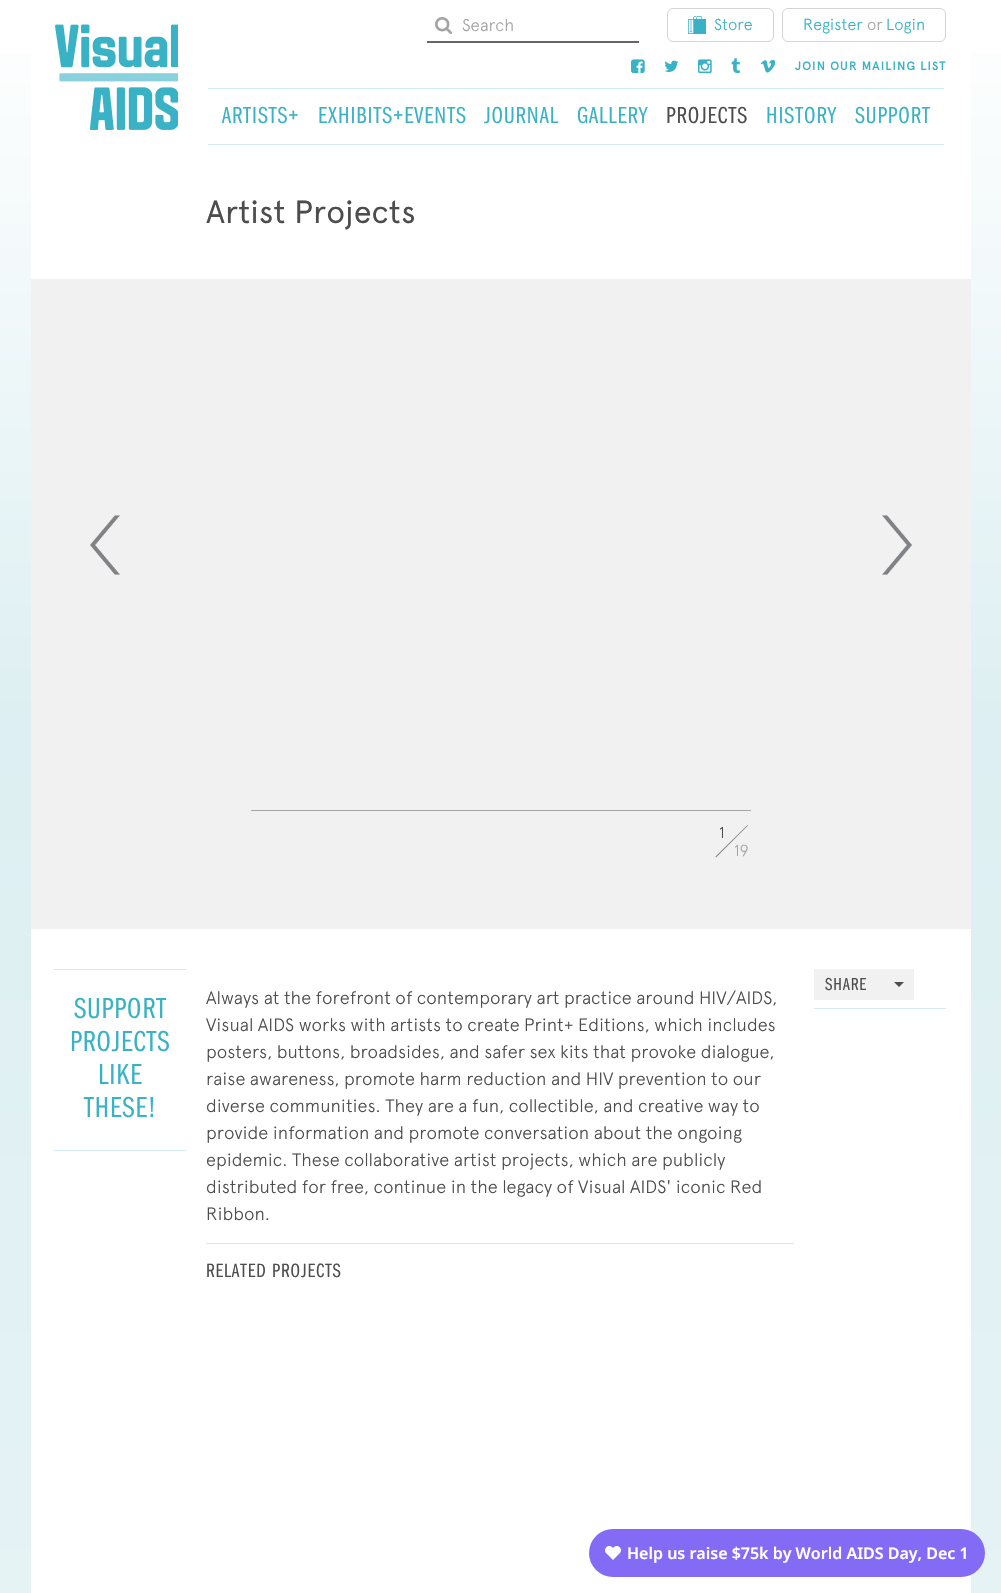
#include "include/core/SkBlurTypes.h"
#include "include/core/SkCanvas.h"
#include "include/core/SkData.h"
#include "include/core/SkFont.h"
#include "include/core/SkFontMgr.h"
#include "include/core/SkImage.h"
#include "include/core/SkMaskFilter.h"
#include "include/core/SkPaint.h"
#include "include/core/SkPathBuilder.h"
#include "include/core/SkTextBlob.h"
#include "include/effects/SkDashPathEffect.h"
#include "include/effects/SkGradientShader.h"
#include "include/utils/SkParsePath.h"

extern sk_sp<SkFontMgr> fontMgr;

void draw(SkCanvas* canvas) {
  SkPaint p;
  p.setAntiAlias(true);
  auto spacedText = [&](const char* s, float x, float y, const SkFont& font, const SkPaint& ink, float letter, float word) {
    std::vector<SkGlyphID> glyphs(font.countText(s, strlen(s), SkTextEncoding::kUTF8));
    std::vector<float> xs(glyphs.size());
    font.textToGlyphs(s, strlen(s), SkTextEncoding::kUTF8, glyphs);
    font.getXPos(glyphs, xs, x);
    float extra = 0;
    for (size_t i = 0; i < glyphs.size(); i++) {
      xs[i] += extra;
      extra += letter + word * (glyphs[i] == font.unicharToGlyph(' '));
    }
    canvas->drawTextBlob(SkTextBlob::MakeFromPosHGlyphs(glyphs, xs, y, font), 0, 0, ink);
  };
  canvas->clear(SK_ColorWHITE);
  {
    const SkColor colors[] = {SK_ColorWHITE, SkColorSetRGB(221, 239, 242), SK_ColorWHITE};
    const float stops[] = {0, 0.16f, 1};
    const SkPoint ends[] = {{500, 0}, {501, 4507}};
    p.setShader(SkGradientShader::MakeLinear(ends, colors, stops, 3, SkTileMode::kClamp));
    p.setAlpha(255);
  }
  canvas->drawRect(SkRect::MakeLTRB(0, 53, 1001, 1593), p);
  p.setShader(nullptr);
  p.setColor(SK_ColorWHITE);
  canvas->drawRect(SkRect::MakeLTRB(31, 53, 971, 1593), p);
  canvas->drawImageRect(SkImages::DeferredFromEncodedData(SkData::MakeFromFileName("images/1.png")), SkRect::MakeLTRB(55, 24, 178, 130), SkSamplingOptions());
  canvas->drawImageRect(SkImages::DeferredFromEncodedData(SkData::MakeFromFileName("images/2.png")), SkRect::MakeLTRB(435, 17, 452, 34), SkSamplingOptions());
  p.setColor(SkColorSetRGB(102, 102, 102));
  canvas->drawRect(SkRect::MakeLTRB(427, 41, 639, 43), p);
  p.setStyle(SkPaint::kStroke_Style);
  p.setStrokeWidth(1);
  p.setColor(SkColorSetRGB(212, 212, 212));
  canvas->drawRoundRect(SkRect::MakeLTRB(667.5f, 8.5f, 773.5f, 41.5f), 5.5f, 5.5f, p);
  canvas->drawImageRect(SkImages::DeferredFromEncodedData(SkData::MakeFromFileName("images/3.png")), SkRect::MakeLTRB(688, 16, 706, 34), SkSamplingOptions());
  canvas->drawRoundRect(SkRect::MakeLTRB(782.5f, 8.5f, 945.5f, 41.5f), 5.5f, 5.5f, p);
  canvas->drawImageRect(SkImages::DeferredFromEncodedData(SkData::MakeFromFileName("images/4.png")), SkRect::MakeLTRB(631, 59, 645, 74), SkSamplingOptions());
  canvas->drawImageRect(SkImages::DeferredFromEncodedData(SkData::MakeFromFileName("images/5.png")), SkRect::MakeLTRB(664, 60, 679, 72), SkSamplingOptions());
  canvas->drawImageRect(SkImages::DeferredFromEncodedData(SkData::MakeFromFileName("images/6.png")), SkRect::MakeLTRB(698, 59, 712, 74), SkSamplingOptions());
  canvas->drawImageRect(SkImages::DeferredFromEncodedData(SkData::MakeFromFileName("images/7.png")), SkRect::MakeLTRB(731, 58, 741, 74), SkSamplingOptions());
  canvas->drawImageRect(SkImages::DeferredFromEncodedData(SkData::MakeFromFileName("images/8.png")), SkRect::MakeLTRB(760, 60, 776, 73), SkSamplingOptions());
  p.setStyle(SkPaint::kFill_Style);
  p.setColor(SkColorSetRGB(208, 236, 239));
  canvas->drawRect(SkRect::MakeLTRB(208, 88, 944, 89), p);
  canvas->drawRect(SkRect::MakeLTRB(208, 144, 944, 145), p);
  p.setColor(SkColorSetRGB(241, 241, 241));
  canvas->drawRect(SkRect::MakeLTRB(31, 279, 971, 929), p);
  canvas->drawImageRect(SkImages::DeferredFromEncodedData(SkData::MakeFromFileName("images/9.png")), SkRect::MakeLTRB(90, 515, 120, 575), SkSamplingOptions());
  canvas->drawImageRect(SkImages::DeferredFromEncodedData(SkData::MakeFromFileName("images/10.png")), SkRect::MakeLTRB(882, 515, 912, 575), SkSamplingOptions());
  p.setColor(SkColorSetRGB(164, 164, 164));
  canvas->drawRect(SkRect::MakeLTRB(251, 810, 751, 811), p);
  p.setColor(SkColorSetRGB(241, 241, 241));
  canvas->drawRect(SkRect::MakeLTRB(814, 969, 914, 1000), p);
  p.setColor(SkColorSetRGB(77, 77, 77));
  canvas->drawPath(SkPathBuilder().moveTo(894, 982).lineTo(904, 982).lineTo(899, 987).close().detach(), p);
  p.setColor(SkColorSetRGB(208, 236, 239));
  canvas->drawRect(SkRect::MakeLTRB(814, 1008, 946, 1009), p);
  canvas->drawRect(SkRect::MakeLTRB(54, 969, 186, 970), p);
  canvas->drawRect(SkRect::MakeLTRB(54, 1150, 186, 1151), p);
  canvas->drawRect(SkRect::MakeLTRB(206, 1243, 794, 1244), p);
  p.setColor(SkColorSetRGB(132, 107, 245));
  canvas->drawRoundRect(SkRect::MakeLTRB(589, 1529, 985, 1577), 24, 24, p);
  canvas->drawImageRect(SkImages::DeferredFromEncodedData(SkData::MakeFromFileName("images/11.png")), SkRect::MakeLTRB(605, 1546, 621, 1560), SkSamplingOptions());
  SkFont font1(fontMgr->matchFamilyStyle("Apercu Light", SkFontStyle(300, SkFontStyle::kNormal_Width, SkFontStyle::kUpright_Slant)), 17);
  font1.setSubpixel(true);
  p.setColor(SkColorSetRGB(164, 164, 164));
  canvas->drawString("Search", 462, 31, font1, p);
  SkFont font2(fontMgr->matchFamilyStyle("Apercu Light", SkFontStyle(300, SkFontStyle::kNormal_Width, SkFontStyle::kUpright_Slant)), 16);
  font2.setSubpixel(true);
  p.setColor(SkColorSetRGB(58, 178, 197));
  canvas->drawString("Store", 714, 30, font2, p);
  canvas->drawString("Register", 803, 30, font2, p);
  p.setColor(SkColorSetRGB(164, 164, 164));
  canvas->drawString("or", 867, 30, font2, p);
  p.setColor(SkColorSetRGB(58, 178, 197));
  canvas->drawString("Login", 886, 30, font2, p);
  SkFont font3(fontMgr->matchFamilyStyle("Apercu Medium", SkFontStyle(500, SkFontStyle::kNormal_Width, SkFontStyle::kUpright_Slant)), 12);
  font3.setSubpixel(true);
  spacedText("JOIN OUR MAILING LIST", 795, 70, font3, p, 1, 0);
  SkFont font4(fontMgr->matchFamilyStyle("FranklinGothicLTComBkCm", SkFontStyle::Normal()), 24);
  font4.setSubpixel(true);
  spacedText("ARTISTS+", 222, 123, font4, p, 1, 0);
  spacedText("EXHIBITS+EVENTS", 318, 123, font4, p, 1, 0);
  spacedText("JOURNAL", 484, 123, font4, p, 1, 0);
  spacedText("GALLERY", 577, 123, font4, p, 1, 0);
  p.setColor(SkColorSetRGB(77, 77, 77));
  spacedText("PROJECTS", 666, 123, font4, p, 1, 0);
  p.setColor(SkColorSetRGB(58, 178, 197));
  spacedText("HISTORY", 766, 123, font4, p, 1, 0);
  spacedText("SUPPORT", 855, 123, font4, p, 1, 0);
  SkFont font5(fontMgr->matchFamilyStyle("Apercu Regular", SkFontStyle::Normal()), 32);
  font5.setSubpixel(true);
  p.setColor(SkColorSetRGB(77, 77, 77));
  canvas->drawString("Artist Projects", 206, 223, font5, p);
  canvas->drawString("1", 719, 838, font2, p);
  p.setColor(SkColorSetRGB(128, 128, 128));
  canvas->drawPath(SkPathBuilder().moveTo(715.5f, 856.5f).lineTo(747.5f, 825).lineTo(748, 825.5f).lineTo(716, 857.5f).close().detach(), p);
  p.setColor(SkColorSetRGB(164, 164, 164));
  canvas->drawString("19", 734, 856, font2, p);
  SkFont font6(fontMgr->matchFamilyStyle("FranklinGothicLTComBkCm", SkFontStyle::Normal()), 18);
  font6.setSubpixel(true);
  p.setColor(SkColorSetRGB(77, 77, 77));
  spacedText("SHARE", 825, 990, font6, p, 1, 0);
  SkFont font7(fontMgr->matchFamilyStyle("FranklinGothicLTComBkCm", SkFontStyle::Normal()), 30);
  font7.setSubpixel(true);
  p.setColor(SkColorSetRGB(58, 178, 197));
  spacedText("SUPPORT", 74, 1018, font7, p, 1, 0);
  spacedText("PROJECTS", 70, 1051, font7, p, 1, 0);
  spacedText("LIKE", 98, 1084, font7, p, 1, 0);
  spacedText("THESE!", 84, 1117, font7, p, 1, 0);
  SkFont font8(fontMgr->matchFamilyStyle("Apercu Light", SkFontStyle(300, SkFontStyle::kNormal_Width, SkFontStyle::kUpright_Slant)), 18);
  font8.setSubpixel(true);
  p.setColor(SkColorSetRGB(77, 77, 77));
  canvas->drawString("Always at the forefront of contemporary art practice around HIV/AIDS,", 206, 1004, font8, p);
  canvas->drawString("Visual AIDS works with artists to create Print+ Editions, which includes", 206, 1031, font8, p);
  canvas->drawString("posters, buttons, broadsides, and safer sex kits that provoke dialogue,", 206, 1058, font8, p);
  canvas->drawString("raise awareness, promote harm reduction and HIV prevention to our", 206, 1085, font8, p);
  canvas->drawString("diverse communities. They are a fun, collectible, and creative way to", 206, 1112, font8, p);
  canvas->drawString("provide information and promote conversation about the ongoing", 206, 1139, font8, p);
  canvas->drawString("epidemic. These collaborative artist projects, which are publicly", 206, 1166, font8, p);
  canvas->drawString("distributed for free, continue in the legacy of Visual AIDS' iconic Red", 206, 1193, font8, p);
  canvas->drawString("Ribbon.", 206, 1220, font8, p);
  SkFont font9(fontMgr->matchFamilyStyle("FranklinGothicLTComBkCm", SkFontStyle::Normal()), 20);
  font9.setSubpixel(true);
  spacedText("RELATED PROJECTS", 206, 1277, font9, p, 1, 0);
  SkFont font10(fontMgr->matchFamilyStyle("Noto Sans", SkFontStyle(600, SkFontStyle::kNormal_Width, SkFontStyle::kUpright_Slant)), 16);
  font10.setSubpixel(true);
  p.setColor(SK_ColorWHITE);
  canvas->drawString("Help us raise $75k by World AIDS Day, Dec 1", 627, 1559, font10, p);
}
